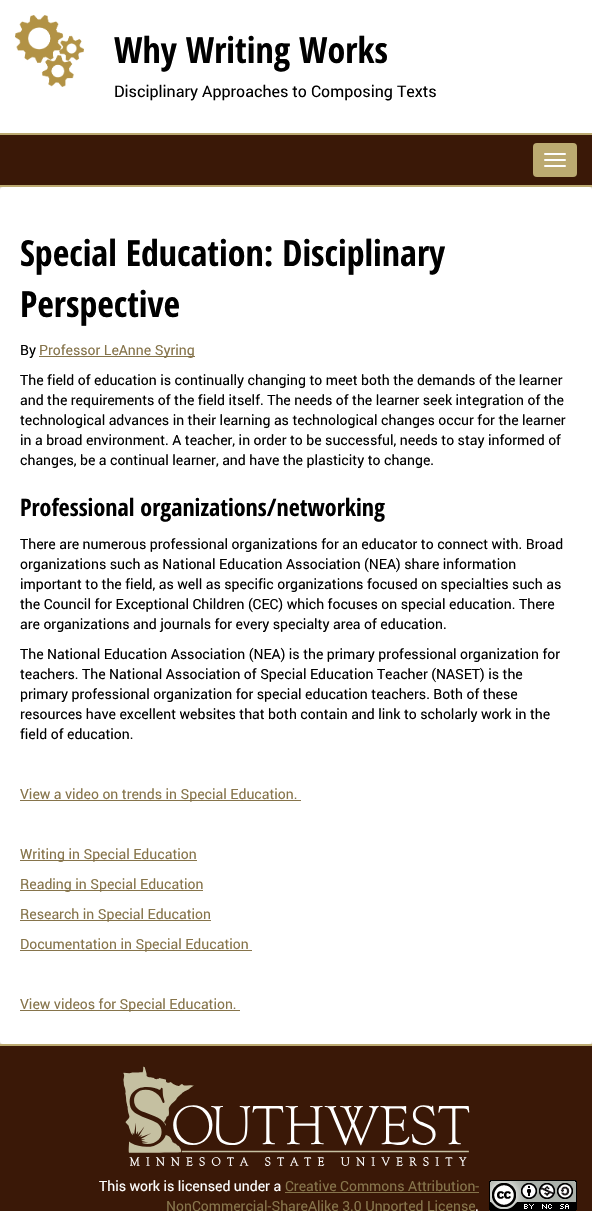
#include "include/core/SkBlurTypes.h"
#include "include/core/SkCanvas.h"
#include "include/core/SkData.h"
#include "include/core/SkFont.h"
#include "include/core/SkFontMgr.h"
#include "include/core/SkImage.h"
#include "include/core/SkMaskFilter.h"
#include "include/core/SkPaint.h"
#include "include/core/SkPathBuilder.h"
#include "include/core/SkTextBlob.h"
#include "include/effects/SkDashPathEffect.h"
#include "include/effects/SkGradientShader.h"
#include "include/utils/SkParsePath.h"

extern sk_sp<SkFontMgr> fontMgr;

void draw(SkCanvas* canvas) {
  SkPaint p;
  p.setAntiAlias(true);
  canvas->clear(SkColorSetRGB(227, 220, 207));
  p.setColor(SK_ColorWHITE);
  canvas->drawRect(SkRect::MakeLTRB(0, 0, 592, 133), p);
  canvas->drawImageRect(SkImages::DeferredFromEncodedData(SkData::MakeFromFileName("images/1.png")), SkRect::MakeLTRB(15, 15, 84, 87), SkSamplingOptions());
  p.setColor(SkColorSetRGB(58, 24, 7));
  canvas->drawRect(SkRect::MakeLTRB(0, 135, 592, 185), p);
  p.setColor(SkColorSetRGB(188, 170, 113));
  canvas->drawRect(SkRect::MakeLTRB(0, 133, 592, 135), p);
  canvas->drawRect(SkRect::MakeLTRB(0, 185, 592, 187), p);
  canvas->drawRoundRect(SkRect::MakeLTRB(533, 143, 577, 177), 4, 4, p);
  p.setColor(SK_ColorWHITE);
  canvas->drawRoundRect(SkRect::MakeLTRB(544, 153, 566, 155), 1, 1, p);
  canvas->drawRoundRect(SkRect::MakeLTRB(544, 159, 566, 161), 1, 1, p);
  canvas->drawRoundRect(SkRect::MakeLTRB(544, 165, 566, 167), 1, 1, p);
  canvas->drawRoundRect(SkRect::MakeLTRB(0, 187, 592, 1044), 3, 3, p);
  p.setColor(SkColorSetRGB(134, 116, 75));
  canvas->drawRect(SkRect::MakeLTRB(39, 356, 195, 357), p);
  canvas->drawRect(SkRect::MakeLTRB(20, 800, 301, 801), p);
  canvas->drawRect(SkRect::MakeLTRB(20, 860, 197, 861), p);
  canvas->drawRect(SkRect::MakeLTRB(20, 890, 203, 891), p);
  canvas->drawRect(SkRect::MakeLTRB(20, 920, 211, 921), p);
  canvas->drawRect(SkRect::MakeLTRB(20, 950, 252, 951), p);
  canvas->drawRect(SkRect::MakeLTRB(20, 1010, 240, 1011), p);
  p.setColor(SkColorSetRGB(58, 24, 7));
  canvas->drawRect(SkRect::MakeLTRB(0, 1046, 592, 1211), p);
  p.setColor(SkColorSetRGB(188, 170, 113));
  canvas->drawRect(SkRect::MakeLTRB(0, 1044, 592, 1046), p);
  canvas->drawImageRect(SkImages::DeferredFromEncodedData(SkData::MakeFromFileName("images/2.png")), SkRect::MakeLTRB(123, 1066, 470, 1166), SkSamplingOptions());
  p.setColor(SkColorSetRGB(134, 116, 75));
  canvas->drawRect(SkRect::MakeLTRB(285, 1192, 479, 1193), p);
  canvas->drawImageRect(SkImages::DeferredFromEncodedData(SkData::MakeFromFileName("images/3.png")), SkRect::MakeLTRB(489, 1180, 577, 1211), SkSamplingOptions());
  SkFont font1(fontMgr->matchFamilyStyle("Open Sans Condensed", SkFontStyle::Bold()), 36);
  font1.setSubpixel(true);
  p.setColor(SK_ColorBLACK);
  canvas->drawString("Why Writing Works", 114, 63, font1, p);
  SkFont font2(fontMgr->matchFamilyStyle("roboto", SkFontStyle::Normal()), 16);
  font2.setSubpixel(true);
  canvas->drawString("Disciplinary Approaches to Composing Texts", 114, 97, font2, p);
  canvas->drawString("Special Education: Disciplinary", 20, 266, font1, p);
  canvas->drawString("Perspective", 20, 317, font1, p);
  SkFont font3(fontMgr->matchFamilyStyle("roboto", SkFontStyle::Normal()), 14);
  font3.setSubpixel(true);
  canvas->drawString("By", 20, 355, font3, p);
  p.setColor(SkColorSetRGB(134, 116, 75));
  canvas->drawString("Professor LeAnne Syring", 39, 355, font3, p);
  p.setColor(SK_ColorBLACK);
  canvas->drawString("The field of education is continually changing to meet both the demands of the learner", 20, 385, font3, p);
  canvas->drawString("and the requirements of the field itself. The needs of the learner seek integration of the", 20, 405, font3, p);
  canvas->drawString("technological advances in their learning as technological changes occur for the learner", 20, 425, font3, p);
  canvas->drawString("in a broad environment. A teacher, in order to be successful, needs to stay informed of", 20, 445, font3, p);
  canvas->drawString("changes, be a continual learner, and have the plasticity to change.", 20, 465, font3, p);
  SkFont font4(fontMgr->matchFamilyStyle("Open Sans Condensed", SkFontStyle::Bold()), 24);
  font4.setSubpixel(true);
  canvas->drawString("Professional organizations/networking", 20, 516, font4, p);
  canvas->drawString("There are numerous professional organizations for an educator to connect with. Broad", 20, 549, font3, p);
  canvas->drawString("organizations such as National Education Association (NEA) share information", 20, 569, font3, p);
  canvas->drawString("important to the field, as well as specific organizations focused on specialties such as", 20, 589, font3, p);
  canvas->drawString("the Council for Exceptional Children (CEC) which focuses on special education. There", 20, 609, font3, p);
  canvas->drawString("are organizations and journals for every specialty area of education.", 20, 629, font3, p);
  canvas->drawString("The National Education Association (NEA) is the primary professional organization for", 20, 659, font3, p);
  canvas->drawString("teachers. The National Association of Special Education Teacher (NASET) is the", 20, 679, font3, p);
  canvas->drawString("primary professional organization for special education teachers. Both of these", 20, 699, font3, p);
  canvas->drawString("resources have excellent websites that both contain and link to scholarly work in the", 20, 719, font3, p);
  canvas->drawString("field of education.", 20, 739, font3, p);
  p.setColor(SkColorSetRGB(134, 116, 75));
  canvas->drawString("View a video on trends in Special Education.", 20, 799, font3, p);
  canvas->drawString("Writing in Special Education", 20, 859, font3, p);
  canvas->drawString("Reading in Special Education", 20, 889, font3, p);
  canvas->drawString("Research in Special Education", 20, 919, font3, p);
  canvas->drawString("Documentation in Special Education", 20, 949, font3, p);
  canvas->drawString("View videos for Special Education.", 20, 1009, font3, p);
  p.setColor(SK_ColorWHITE);
  canvas->drawString("This work is licensed under a", 99, 1191, font3, p);
  p.setColor(SkColorSetRGB(134, 116, 75));
  canvas->drawString("Creative Commons Attribution-", 285, 1191, font3, p);
  canvas->drawString("NonCommercial-ShareAlike 3.0 Unported License", 166, 1211, font3, p);
  p.setColor(SK_ColorWHITE);
  canvas->drawString(".", 475, 1211, font3, p);
}
